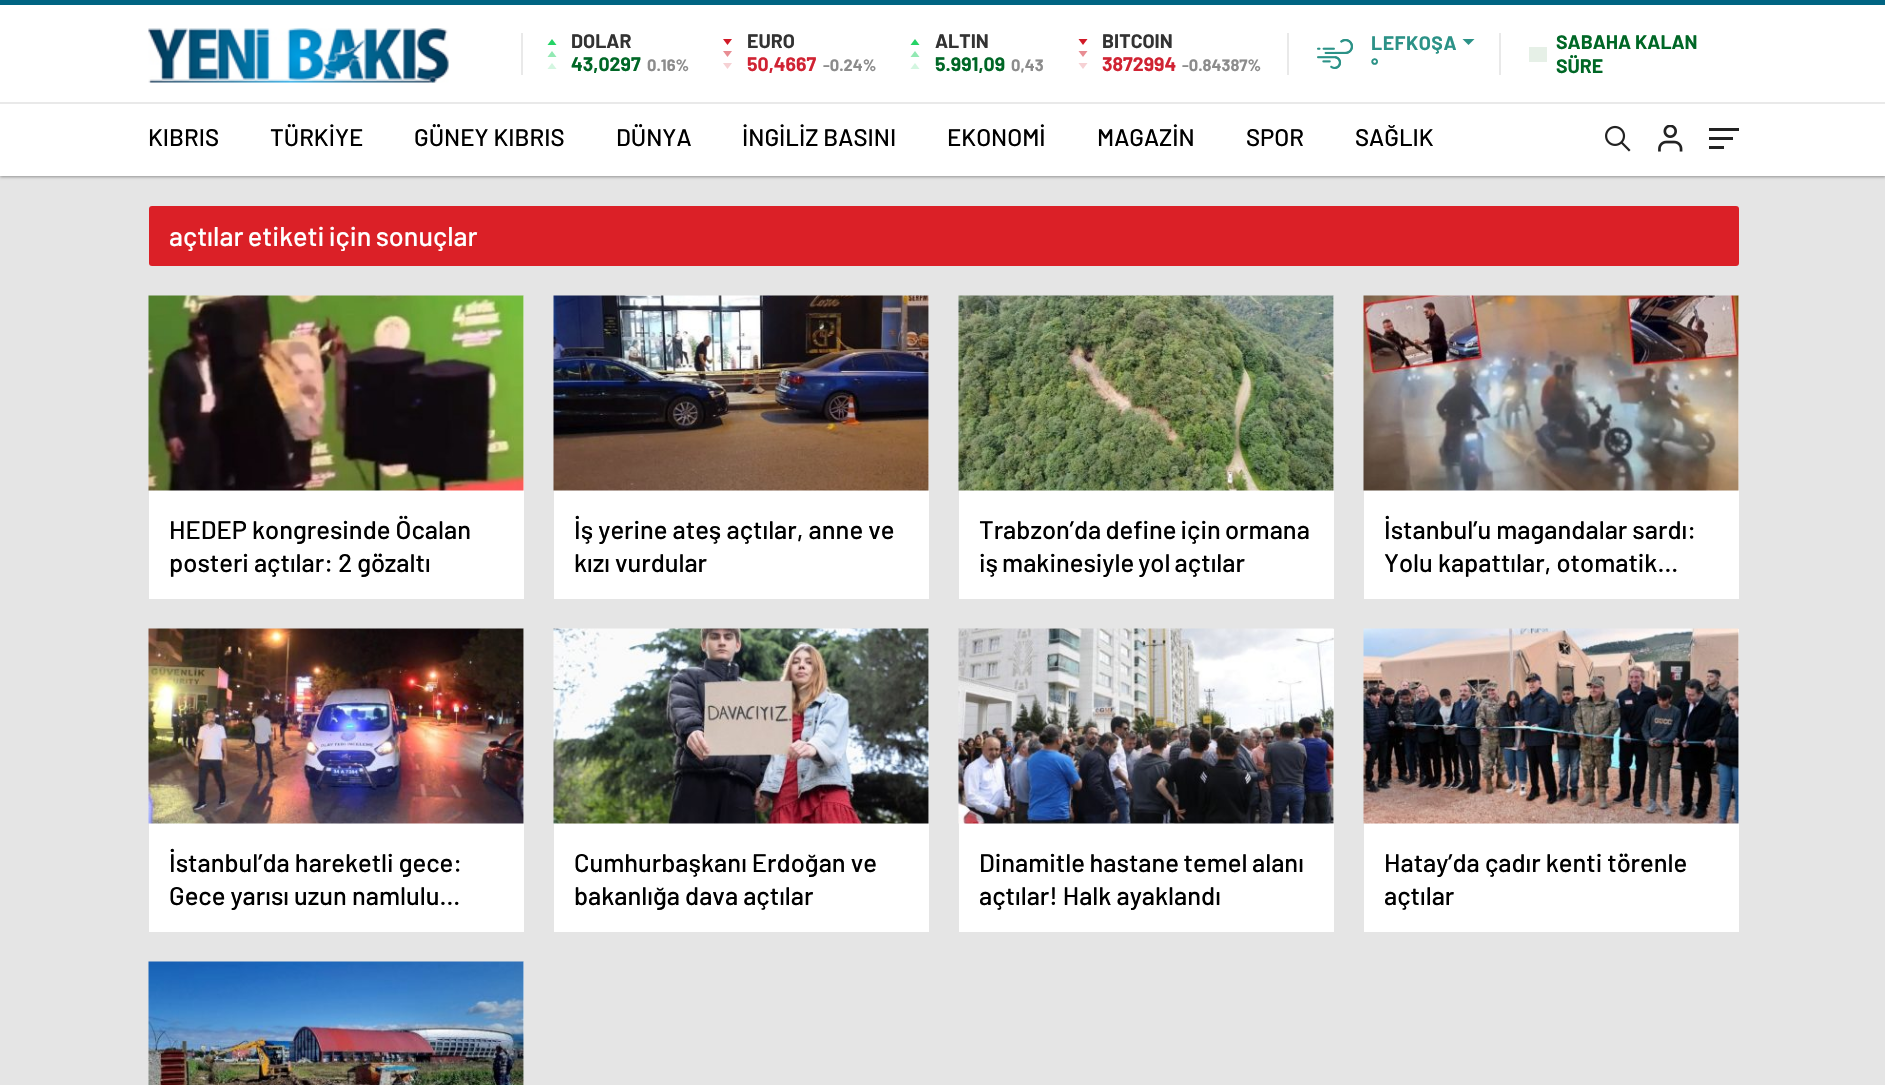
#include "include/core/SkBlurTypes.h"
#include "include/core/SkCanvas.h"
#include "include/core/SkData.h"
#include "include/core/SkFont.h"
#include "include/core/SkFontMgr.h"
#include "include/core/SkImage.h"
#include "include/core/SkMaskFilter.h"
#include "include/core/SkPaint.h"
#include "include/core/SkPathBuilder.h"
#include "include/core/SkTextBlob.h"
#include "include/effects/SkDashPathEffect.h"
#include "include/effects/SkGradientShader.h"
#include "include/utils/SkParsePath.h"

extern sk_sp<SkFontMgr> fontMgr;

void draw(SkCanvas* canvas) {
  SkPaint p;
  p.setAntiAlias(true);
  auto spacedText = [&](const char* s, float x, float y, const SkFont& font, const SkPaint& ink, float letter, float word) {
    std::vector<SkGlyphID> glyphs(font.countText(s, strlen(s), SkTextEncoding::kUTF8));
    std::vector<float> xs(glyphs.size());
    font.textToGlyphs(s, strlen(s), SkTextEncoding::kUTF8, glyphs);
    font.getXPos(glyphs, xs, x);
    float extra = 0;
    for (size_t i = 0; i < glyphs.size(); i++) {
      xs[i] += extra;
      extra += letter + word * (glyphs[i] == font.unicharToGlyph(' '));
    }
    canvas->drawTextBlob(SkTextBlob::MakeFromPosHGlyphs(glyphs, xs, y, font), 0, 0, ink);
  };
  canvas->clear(SkColorSetRGB(229, 229, 229));
  p.setColor(SkColorSetARGB(94, 0, 0, 0));
  p.setMaskFilter(SkMaskFilter::MakeBlur(kNormal_SkBlurStyle, 1.5f));
  canvas->drawRect(SkRect::MakeLTRB(0, 2, 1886, 177), p);
  p.setMaskFilter(nullptr);
  p.setColor(SK_ColorWHITE);
  canvas->drawRect(SkRect::MakeLTRB(0, 5, 1885, 176), p);
  p.setColor(SkColorSetRGB(0, 100, 130));
  canvas->drawRect(SkRect::MakeLTRB(0, 0, 1885, 5), p);
  canvas->drawImageRect(SkImages::DeferredFromEncodedData(SkData::MakeFromFileName("images/1.png")), SkRect::MakeLTRB(148, 28, 449, 83), SkSamplingOptions());
  p.setColor(SkColorSetRGB(233, 233, 233));
  canvas->drawRect(SkRect::MakeLTRB(521, 33, 523, 75), p);
  p.setColor(SkColorSetRGB(37, 211, 102));
  canvas->drawPath(SkPathBuilder().moveTo(556.5f, 45).lineTo(547.5f, 45).lineTo(552, 39).close().detach(), p);
  p.setColor(SkColorSetRGB(146, 233, 179));
  canvas->drawPath(SkPathBuilder().moveTo(556.5f, 57).lineTo(547.5f, 57).lineTo(552, 51).close().detach(), p);
  p.setColor(SkColorSetRGB(211, 246, 224));
  canvas->drawPath(SkPathBuilder().moveTo(556.5f, 69).lineTo(547.5f, 69).lineTo(552, 63).close().detach(), p);
  p.setColor(SkColorSetRGB(209, 26, 39));
  canvas->drawPath(SkPathBuilder().moveTo(723, 39).lineTo(732, 39).lineTo(727.5f, 45).close().detach(), p);
  p.setColor(SkColorSetRGB(232, 141, 147));
  canvas->drawPath(SkPathBuilder().moveTo(723, 51).lineTo(732, 51).lineTo(727.5f, 57).close().detach(), p);
  p.setColor(SkColorSetRGB(246, 209, 212));
  canvas->drawPath(SkPathBuilder().moveTo(723, 63).lineTo(732, 63).lineTo(727.5f, 69).close().detach(), p);
  p.setColor(SkColorSetRGB(37, 211, 102));
  canvas->drawPath(SkPathBuilder().moveTo(919.5f, 45).lineTo(910.5f, 45).lineTo(915, 39).close().detach(), p);
  p.setColor(SkColorSetRGB(146, 233, 179));
  canvas->drawPath(SkPathBuilder().moveTo(919.5f, 57).lineTo(910.5f, 57).lineTo(915, 51).close().detach(), p);
  p.setColor(SkColorSetRGB(211, 246, 224));
  canvas->drawPath(SkPathBuilder().moveTo(919.5f, 69).lineTo(910.5f, 69).lineTo(915, 63).close().detach(), p);
  p.setColor(SkColorSetRGB(209, 26, 39));
  canvas->drawPath(SkPathBuilder().moveTo(1078.5f, 39).lineTo(1087.5f, 39).lineTo(1083, 45).close().detach(), p);
  p.setColor(SkColorSetRGB(232, 141, 147));
  canvas->drawPath(SkPathBuilder().moveTo(1078.5f, 51).lineTo(1087.5f, 51).lineTo(1083, 57).close().detach(), p);
  p.setColor(SkColorSetRGB(246, 209, 212));
  canvas->drawPath(SkPathBuilder().moveTo(1078.5f, 63).lineTo(1087.5f, 63).lineTo(1083, 69).close().detach(), p);
  p.setColor(SkColorSetRGB(233, 233, 233));
  canvas->drawRect(SkRect::MakeLTRB(1287, 33, 1289, 75), p);
  canvas->drawImageRect(SkImages::DeferredFromEncodedData(SkData::MakeFromFileName("images/2.png")), SkRect::MakeLTRB(1317, 39, 1353, 69), SkSamplingOptions());
  p.setColor(SkColorSetRGB(44, 146, 135));
  canvas->drawPath(SkPathBuilder().moveTo(1462.5f, 39).lineTo(1474.5f, 39).lineTo(1468.5f, 45).close().detach(), p);
  p.setColor(SkColorSetRGB(233, 233, 233));
  canvas->drawRect(SkRect::MakeLTRB(1499, 33, 1501, 75), p);
  p.setColor(SkColorSetRGB(230, 240, 231));
  canvas->drawRect(SkRect::MakeLTRB(1529, 47, 1547, 62), p);
  p.setColor(SkColorSetRGB(233, 233, 233));
  canvas->drawRect(SkRect::MakeLTRB(0, 102, 1885, 104), p);
  canvas->drawImageRect(SkImages::DeferredFromEncodedData(SkData::MakeFromFileName("images/3.png")), SkRect::MakeLTRB(1605, 125, 1631, 152), SkSamplingOptions());
  canvas->drawImageRect(SkImages::DeferredFromEncodedData(SkData::MakeFromFileName("images/4.png")), SkRect::MakeLTRB(1658, 125, 1683, 152), SkSamplingOptions());
  p.setColor(SkColorSetRGB(34, 34, 34));
  canvas->drawRect(SkRect::MakeLTRB(1709, 128, 1739, 131), p);
  canvas->drawRect(SkRect::MakeLTRB(1709, 137, 1733, 140), p);
  canvas->drawRect(SkRect::MakeLTRB(1709, 146, 1724, 149), p);
  p.setColor(SkColorSetRGB(219, 32, 39));
  canvas->drawRoundRect(SkRect::MakeLTRB(149, 206, 1739, 266), 3, 3, p);
  p.setColor(SK_ColorWHITE);
  canvas->drawRect(SkRect::MakeLTRB(149, 296, 524, 599), p);
  canvas->drawImageRect(SkImages::DeferredFromEncodedData(SkData::MakeFromFileName("images/5.png")), SkRect::MakeLTRB(148, 295, 524, 491), SkSamplingOptions());
  canvas->drawRect(SkRect::MakeLTRB(554, 296, 929, 599), p);
  canvas->drawImageRect(SkImages::DeferredFromEncodedData(SkData::MakeFromFileName("images/6.png")), SkRect::MakeLTRB(553, 295, 929, 491), SkSamplingOptions());
  canvas->drawRect(SkRect::MakeLTRB(959, 296, 1334, 599), p);
  canvas->drawImageRect(SkImages::DeferredFromEncodedData(SkData::MakeFromFileName("images/7.png")), SkRect::MakeLTRB(958, 295, 1334, 491), SkSamplingOptions());
  canvas->drawRect(SkRect::MakeLTRB(1364, 296, 1739, 599), p);
  canvas->drawImageRect(SkImages::DeferredFromEncodedData(SkData::MakeFromFileName("images/8.png")), SkRect::MakeLTRB(1363, 295, 1739, 491), SkSamplingOptions());
  canvas->drawRect(SkRect::MakeLTRB(149, 629, 524, 932), p);
  canvas->drawImageRect(SkImages::DeferredFromEncodedData(SkData::MakeFromFileName("images/9.png")), SkRect::MakeLTRB(148, 628, 524, 824), SkSamplingOptions());
  canvas->drawRect(SkRect::MakeLTRB(554, 629, 929, 932), p);
  canvas->drawImageRect(SkImages::DeferredFromEncodedData(SkData::MakeFromFileName("images/10.png")), SkRect::MakeLTRB(553, 628, 929, 824), SkSamplingOptions());
  canvas->drawRect(SkRect::MakeLTRB(959, 629, 1334, 932), p);
  canvas->drawImageRect(SkImages::DeferredFromEncodedData(SkData::MakeFromFileName("images/11.png")), SkRect::MakeLTRB(958, 628, 1334, 824), SkSamplingOptions());
  canvas->drawRect(SkRect::MakeLTRB(1364, 629, 1739, 932), p);
  canvas->drawImageRect(SkImages::DeferredFromEncodedData(SkData::MakeFromFileName("images/12.png")), SkRect::MakeLTRB(1363, 628, 1739, 824), SkSamplingOptions());
  canvas->drawRect(SkRect::MakeLTRB(523, 962, 524, 1085), p);
  canvas->drawImageRect(SkImages::DeferredFromEncodedData(SkData::MakeFromFileName("images/13.png")), SkRect::MakeLTRB(148, 961, 524, 1085), SkSamplingOptions());
  SkFont font1(fontMgr->matchFamilyStyle("Barlow", SkFontStyle::Bold()), 19.5f);
  font1.setSubpixel(true);
  p.setColor(SkColorSetRGB(51, 51, 51));
  canvas->drawString("DOLAR", 571, 48, font1, p);
  p.setColor(SkColorSetRGB(0, 103, 38));
  canvas->drawString("43,0297", 571, 71, font1, p);
  SkFont font2(fontMgr->matchFamilyStyle("Barlow", SkFontStyle::Bold()), 16.5f);
  font2.setSubpixel(true);
  p.setColor(SkColorSetRGB(140, 140, 140));
  canvas->drawString("0.16%", 647, 71, font2, p);
  p.setColor(SkColorSetRGB(51, 51, 51));
  canvas->drawString("EURO", 747, 48, font1, p);
  p.setColor(SkColorSetRGB(208, 35, 51));
  canvas->drawString("50,4667", 747, 71, font1, p);
  p.setColor(SkColorSetRGB(140, 140, 140));
  canvas->drawString("-0.24%", 823, 71, font2, p);
  p.setColor(SkColorSetRGB(51, 51, 51));
  canvas->drawString("ALTIN", 935, 48, font1, p);
  p.setColor(SkColorSetRGB(0, 103, 38));
  canvas->drawString("5.991,09", 935, 71, font1, p);
  p.setColor(SkColorSetRGB(140, 140, 140));
  canvas->drawString("0,43", 1011, 71, font2, p);
  p.setColor(SkColorSetRGB(51, 51, 51));
  canvas->drawString("BITCOIN", 1102, 48, font1, p);
  p.setColor(SkColorSetRGB(208, 35, 51));
  canvas->drawString("3872994", 1102, 71, font1, p);
  p.setColor(SkColorSetRGB(140, 140, 140));
  canvas->drawString("-0.84387%", 1182, 71, font2, p);
  p.setColor(SkColorSetRGB(44, 146, 135));
  spacedText("LEFKOŞA", 1371, 50, font1, p, 0.5f, 0);
  spacedText("°", 1371, 74, font1, p, 0.5f, 0);
  p.setColor(SkColorSetRGB(0, 103, 38));
  canvas->drawString("SABAHA KALAN", 1556, 49, font1, p);
  canvas->drawString("SÜRE", 1556, 73, font1, p);
  SkFont font3(fontMgr->matchFamilyStyle("Barlow", SkFontStyle(500, SkFontStyle::kNormal_Width, SkFontStyle::kUpright_Slant)), 24);
  font3.setSubpixel(true);
  p.setColor(SK_ColorBLACK);
  canvas->drawString("KIBRIS", 148, 146, font3, p);
  canvas->drawString("TÜRKİYE", 270, 146, font3, p);
  canvas->drawString("GÜNEY KIBRIS", 414, 146, font3, p);
  canvas->drawString("DÜNYA", 616, 146, font3, p);
  canvas->drawString("İNGİLİZ BASINI", 742, 146, font3, p);
  canvas->drawString("EKONOMİ", 947, 146, font3, p);
  canvas->drawString("MAGAZİN", 1097, 146, font3, p);
  canvas->drawString("SPOR", 1246, 146, font3, p);
  canvas->drawString("SAĞLIK", 1355, 146, font3, p);
  SkFont font4(fontMgr->matchFamilyStyle("Barlow", SkFontStyle(500, SkFontStyle::kNormal_Width, SkFontStyle::kUpright_Slant)), 27);
  font4.setSubpixel(true);
  p.setColor(SK_ColorWHITE);
  spacedText("açtılar etiketi için sonuçlar", 169, 246, font4, p, 0, -1);
  SkFont font5(fontMgr->matchFamilyStyle("Barlow", SkFontStyle(500, SkFontStyle::kNormal_Width, SkFontStyle::kUpright_Slant)), 25.5f);
  font5.setSubpixel(true);
  p.setColor(SK_ColorBLACK);
  canvas->drawString("HEDEP kongresinde Öcalan", 169, 539, font5, p);
  canvas->drawString("posteri açtılar: 2 gözaltı", 169, 572, font5, p);
  canvas->drawString("İş yerine ateş açtılar, anne ve", 574, 539, font5, p);
  canvas->drawString("kızı vurdular", 574, 572, font5, p);
  spacedText("Trabzon’da define için ormana", 979, 539, font5, p, 0, -1);
  spacedText("iş makinesiyle yol açtılar", 979, 572, font5, p, 0, -1);
  canvas->drawString("İstanbul’u magandalar sardı:", 1384, 539, font5, p);
  canvas->drawString("Yolu kapattılar, otomatik…", 1384, 572, font5, p);
  canvas->drawString("İstanbul’da hareketli gece:", 169, 872, font5, p);
  canvas->drawString("Gece yarısı uzun namlulu…", 169, 905, font5, p);
  canvas->drawString("Cumhurbaşkanı Erdoğan ve", 574, 872, font5, p);
  canvas->drawString("bakanlığa dava açtılar", 574, 905, font5, p);
  spacedText("Dinamitle hastane temel alanı", 979, 872, font5, p, 0, -0.5f);
  canvas->drawString("açtılar! Halk ayaklandı", 979, 905, font5, p);
  canvas->drawString("Hatay’da çadır kenti törenle", 1384, 872, font5, p);
  canvas->drawString("açtılar", 1384, 905, font5, p);
}
